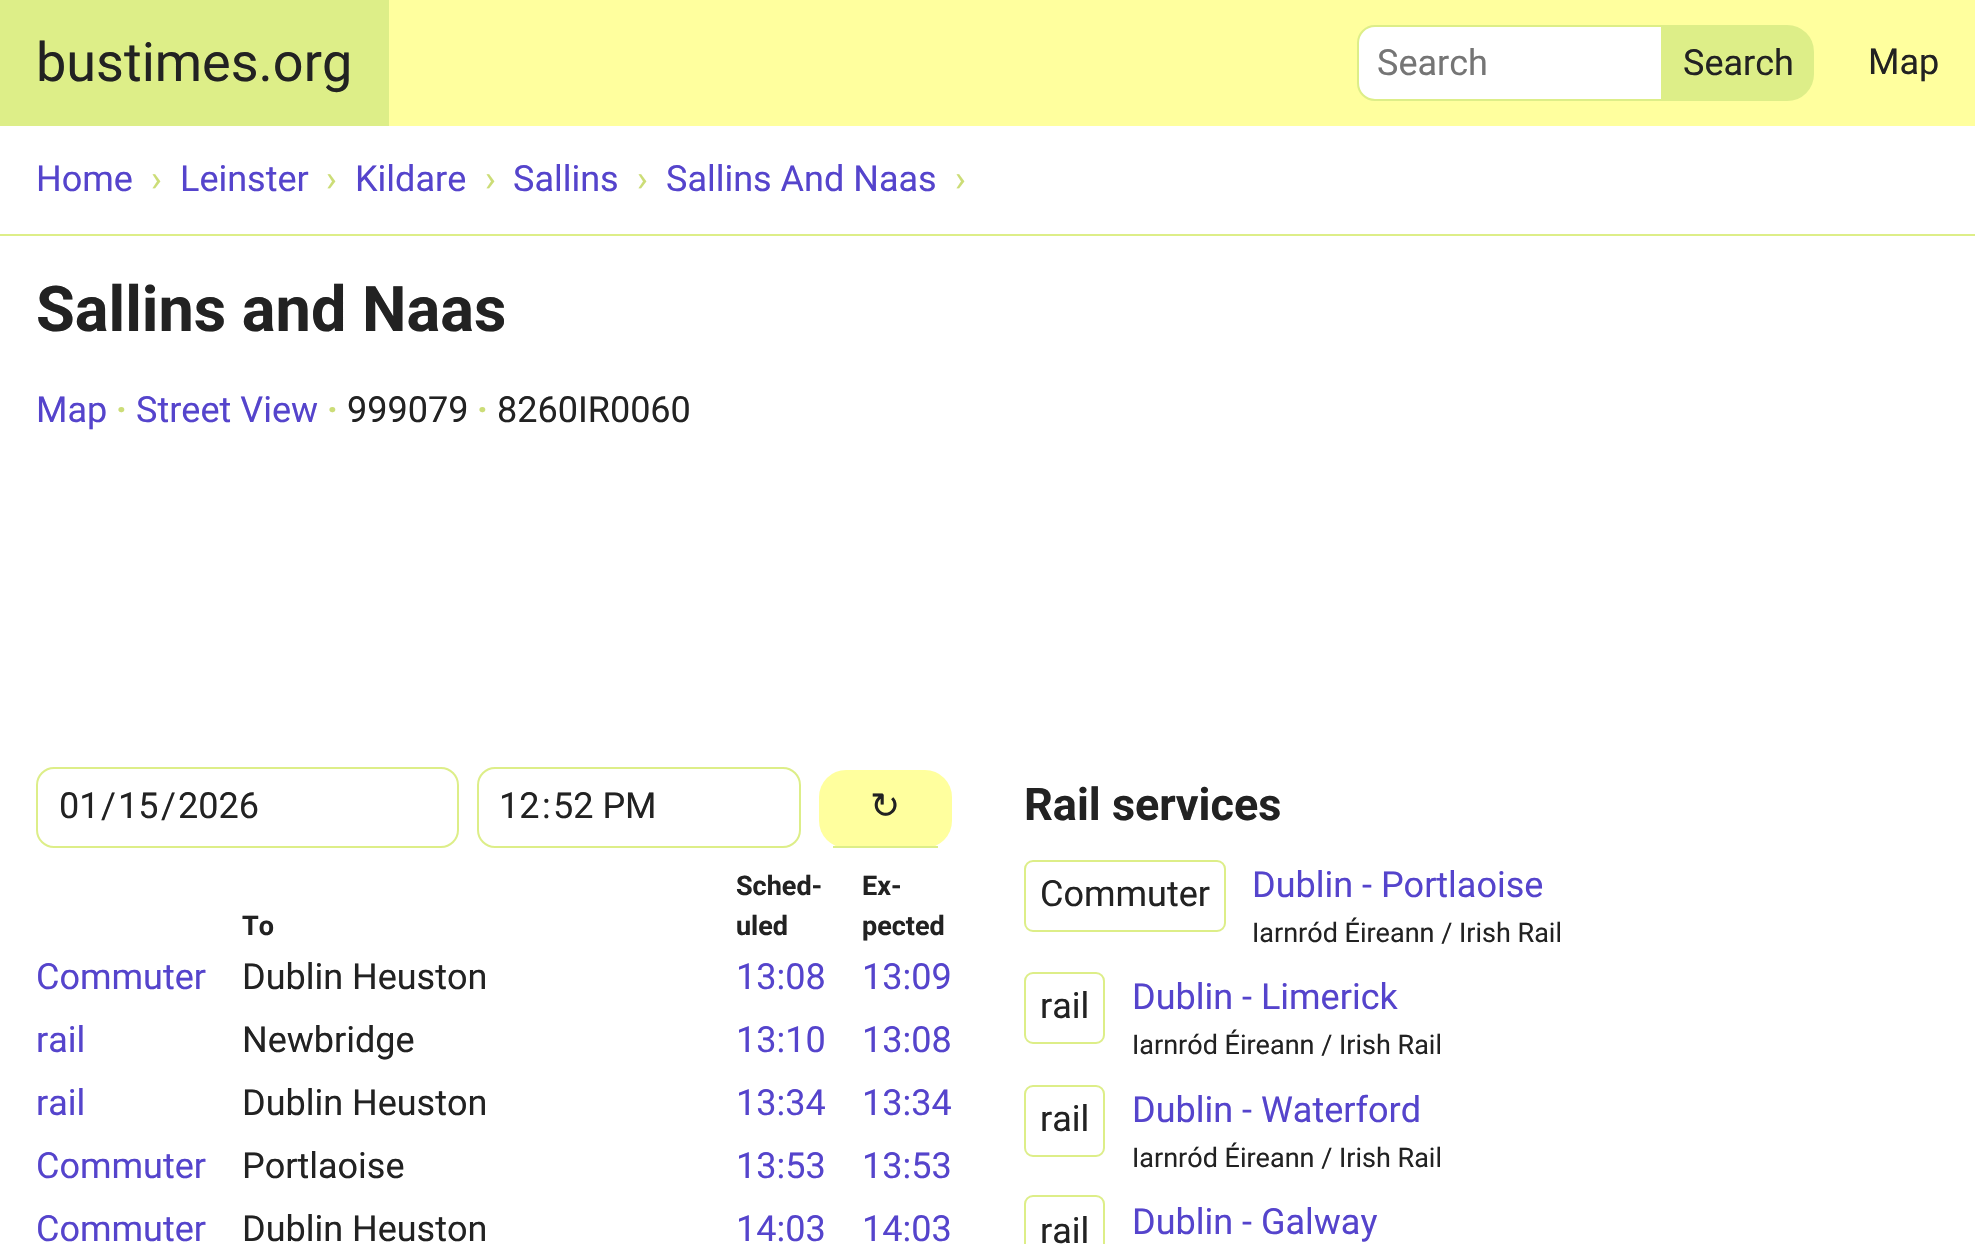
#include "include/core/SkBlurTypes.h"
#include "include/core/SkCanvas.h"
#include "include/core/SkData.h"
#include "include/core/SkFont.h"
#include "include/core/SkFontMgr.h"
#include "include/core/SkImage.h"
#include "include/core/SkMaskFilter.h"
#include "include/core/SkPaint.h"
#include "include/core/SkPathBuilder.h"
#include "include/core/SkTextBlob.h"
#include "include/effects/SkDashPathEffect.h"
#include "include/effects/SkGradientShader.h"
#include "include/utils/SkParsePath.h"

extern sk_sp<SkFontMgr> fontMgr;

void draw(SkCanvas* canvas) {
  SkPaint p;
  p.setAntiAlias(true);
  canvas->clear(SK_ColorWHITE);
  p.setColor(SkColorSetRGB(255, 255, 158));
  canvas->drawRect(SkRect::MakeLTRB(389, 0, 1975, 126), p);
  p.setColor(SkColorSetRGB(221, 238, 136));
  canvas->drawRect(SkRect::MakeLTRB(0, 0, 389, 126), p);
  p.setColor(SK_ColorWHITE);
  canvas->drawPath(SkPathBuilder().moveTo(1375, 26).lineTo(1662, 26).lineTo(1662, 100).lineTo(1375, 100).cubicTo(1365.5f, 100, 1358, 92.5f, 1358, 83).lineTo(1358, 43).cubicTo(1358, 33.5f, 1365.5f, 26, 1375, 26).close().detach(), p);
  p.setStyle(SkPaint::kStroke_Style);
  p.setStrokeWidth(2);
  p.setColor(SkColorSetRGB(221, 238, 136));
  canvas->drawPath(SkPathBuilder().moveTo(1375, 26).lineTo(1662, 26).lineTo(1662, 100).lineTo(1375, 100).cubicTo(1365.5f, 100, 1358, 92.5f, 1358, 83).lineTo(1358, 43).cubicTo(1358, 33.5f, 1365.5f, 26, 1375, 26).close().detach(), p);
  p.setStyle(SkPaint::kFill_Style);
  canvas->drawPath(SkPathBuilder().moveTo(1664, 26).lineTo(1787, 26).cubicTo(1801.5f, 26, 1813, 37.5f, 1813, 52).lineTo(1813, 74).cubicTo(1813, 88.5f, 1801.5f, 100, 1787, 100).lineTo(1664, 100).close().detach(), p);
  p.setStyle(SkPaint::kStroke_Style);
  canvas->drawPath(SkPathBuilder().moveTo(1664, 26).lineTo(1787, 26).cubicTo(1801.5f, 26, 1813, 37.5f, 1813, 52).lineTo(1813, 74).cubicTo(1813, 88.5f, 1801.5f, 100, 1787, 100).lineTo(1664, 100).close().detach(), p);
  p.setStyle(SkPaint::kFill_Style);
  canvas->drawRect(SkRect::MakeLTRB(0, 234, 1975, 236), p);
  p.setStyle(SkPaint::kStroke_Style);
  canvas->drawRoundRect(SkRect::MakeLTRB(37, 768, 458, 847), 17, 17, p);
  canvas->drawRoundRect(SkRect::MakeLTRB(478, 768, 800, 847), 17, 17, p);
  p.setStyle(SkPaint::kFill_Style);
  p.setColor(SkColorSetRGB(255, 255, 158));
  canvas->drawRoundRect(SkRect::MakeLTRB(819, 770, 952, 848), 27, 27, p);
  p.setColor(SkColorSetRGB(221, 238, 136));
  canvas->drawRect(SkRect::MakeLTRB(833, 846, 938, 848), p);
  p.setStyle(SkPaint::kStroke_Style);
  canvas->drawRoundRect(SkRect::MakeLTRB(1025, 861, 1225, 931), 8, 8, p);
  canvas->drawRoundRect(SkRect::MakeLTRB(1025, 973, 1104, 1043), 8, 8, p);
  canvas->drawRoundRect(SkRect::MakeLTRB(1025, 1086, 1104, 1156), 8, 8, p);
  canvas->drawRoundRect(SkRect::MakeLTRB(1025, 1196, 1104, 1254), 8, 8, p);
  SkFont font1(fontMgr->matchFamilyStyle("Roboto", SkFontStyle::Normal()), 54);
  font1.setSubpixel(true);
  p.setStyle(SkPaint::kFill_Style);
  p.setColor(SkColorSetRGB(34, 34, 34));
  canvas->drawString("bustimes.org", 36, 81, font1, p);
  SkFont font2(fontMgr->matchFamilyStyle("Roboto", SkFontStyle::Normal()), 36);
  font2.setSubpixel(true);
  p.setColor(SkColorSetRGB(117, 117, 117));
  canvas->drawString("Search", 1377, 75, font2, p);
  p.setColor(SkColorSetRGB(34, 34, 34));
  canvas->drawString("Search", 1683, 75, font2, p);
  canvas->drawString("Map", 1868, 74, font2, p);
  p.setColor(SkColorSetRGB(85, 68, 204));
  canvas->drawString("Home", 36, 191, font2, p);
  p.setColor(SkColorSetRGB(204, 221, 119));
  canvas->drawString("›", 151, 191, font2, p);
  p.setColor(SkColorSetRGB(85, 68, 204));
  canvas->drawString("Leinster", 180, 191, font2, p);
  p.setColor(SkColorSetRGB(204, 221, 119));
  canvas->drawString("›", 326, 191, font2, p);
  p.setColor(SkColorSetRGB(85, 68, 204));
  canvas->drawString("Kildare", 355, 191, font2, p);
  p.setColor(SkColorSetRGB(204, 221, 119));
  canvas->drawString("›", 485, 191, font2, p);
  p.setColor(SkColorSetRGB(85, 68, 204));
  canvas->drawString("Sallins", 513, 191, font2, p);
  p.setColor(SkColorSetRGB(204, 221, 119));
  canvas->drawString("›", 637, 191, font2, p);
  p.setColor(SkColorSetRGB(85, 68, 204));
  canvas->drawString("Sallins And Naas", 666, 191, font2, p);
  p.setColor(SkColorSetRGB(204, 221, 119));
  canvas->drawString("›", 955, 191, font2, p);
  SkFont font3(fontMgr->matchFamilyStyle("Roboto", SkFontStyle::Bold()), 63);
  font3.setSubpixel(true);
  p.setColor(SkColorSetRGB(34, 34, 34));
  canvas->drawString("Sallins and Naas", 36, 331, font3, p);
  p.setColor(SkColorSetRGB(85, 68, 204));
  canvas->drawString("Map", 36, 422, font2, p);
  SkFont font4(fontMgr->matchFamilyStyle("Roboto", SkFontStyle::Bold()), 36);
  font4.setSubpixel(true);
  p.setColor(SkColorSetRGB(204, 221, 119));
  canvas->drawString("·", 116, 422, font4, p);
  p.setColor(SkColorSetRGB(85, 68, 204));
  canvas->drawString("Street View", 136, 422, font2, p);
  p.setColor(SkColorSetRGB(204, 221, 119));
  canvas->drawString("·", 327, 422, font4, p);
  p.setColor(SkColorSetRGB(34, 34, 34));
  canvas->drawString("999079", 347, 422, font2, p);
  p.setColor(SkColorSetRGB(204, 221, 119));
  canvas->drawString("·", 477, 422, font4, p);
  p.setColor(SkColorSetRGB(34, 34, 34));
  canvas->drawString("8260IR0060", 497, 422, font2, p);
  canvas->drawString("01", 59, 818, font2, p);
  canvas->drawString("/", 101, 818, font2, p);
  canvas->drawString("15", 118, 818, font2, p);
  canvas->drawString("/", 161, 818, font2, p);
  canvas->drawString("2026", 178, 818, font2, p);
  canvas->drawString("12", 499, 818, font2, p);
  canvas->drawString(":", 542, 818, font2, p);
  canvas->drawString("52 PM", 553, 818, font2, p);
  SkFont font5(fontMgr->matchFamilyStyle("DejaVu Sans", SkFontStyle::Normal()), 36);
  font5.setSubpixel(true);
  canvas->drawString("↻", 870, 818, font5, p);
  SkFont font6(fontMgr->matchFamilyStyle("Roboto", SkFontStyle::Bold()), 27);
  font6.setSubpixel(true);
  canvas->drawString("To", 242, 935, font6, p);
  canvas->drawString("Sched-", 736, 895, font6, p);
  canvas->drawString("uled", 736, 935, font6, p);
  canvas->drawString("Ex-", 862, 895, font6, p);
  canvas->drawString("pected", 862, 935, font6, p);
  p.setColor(SkColorSetRGB(85, 68, 204));
  canvas->drawString("Commuter", 36, 989, font2, p);
  p.setColor(SkColorSetRGB(34, 34, 34));
  canvas->drawString("Dublin Heuston", 242, 989, font2, p);
  p.setColor(SkColorSetRGB(85, 68, 204));
  canvas->drawString("13:08", 736, 989, font2, p);
  canvas->drawString("13:09", 862, 989, font2, p);
  canvas->drawString("rail", 36, 1052, font2, p);
  p.setColor(SkColorSetRGB(34, 34, 34));
  canvas->drawString("Newbridge", 242, 1052, font2, p);
  p.setColor(SkColorSetRGB(85, 68, 204));
  canvas->drawString("13:10", 736, 1052, font2, p);
  canvas->drawString("13:08", 862, 1052, font2, p);
  canvas->drawString("rail", 36, 1115, font2, p);
  p.setColor(SkColorSetRGB(34, 34, 34));
  canvas->drawString("Dublin Heuston", 242, 1115, font2, p);
  p.setColor(SkColorSetRGB(85, 68, 204));
  canvas->drawString("13:34", 736, 1115, font2, p);
  canvas->drawString("13:34", 862, 1115, font2, p);
  canvas->drawString("Commuter", 36, 1178, font2, p);
  p.setColor(SkColorSetRGB(34, 34, 34));
  canvas->drawString("Portlaoise", 242, 1178, font2, p);
  p.setColor(SkColorSetRGB(85, 68, 204));
  canvas->drawString("13:53", 736, 1178, font2, p);
  canvas->drawString("13:53", 862, 1178, font2, p);
  canvas->drawString("Commuter", 36, 1241, font2, p);
  p.setColor(SkColorSetRGB(34, 34, 34));
  canvas->drawString("Dublin Heuston", 242, 1241, font2, p);
  p.setColor(SkColorSetRGB(85, 68, 204));
  canvas->drawString("14:03", 736, 1241, font2, p);
  canvas->drawString("14:03", 862, 1241, font2, p);
  SkFont font7(fontMgr->matchFamilyStyle("Roboto", SkFontStyle::Bold()), 45);
  font7.setSubpixel(true);
  p.setColor(SkColorSetRGB(34, 34, 34));
  canvas->drawString("Rail services", 1024, 820, font7, p);
  canvas->drawString("Commuter", 1040, 906, font2, p);
  p.setColor(SkColorSetRGB(85, 68, 204));
  canvas->drawString("Dublin - Portlaoise", 1252, 897, font2, p);
  SkFont font8(fontMgr->matchFamilyStyle("Roboto", SkFontStyle::Normal()), 27);
  font8.setSubpixel(true);
  p.setColor(SkColorSetRGB(34, 34, 34));
  canvas->drawString("Iarnród Éireann / Irish Rail", 1252, 942, font8, p);
  canvas->drawString("rail", 1040, 1018, font2, p);
  p.setColor(SkColorSetRGB(85, 68, 204));
  canvas->drawString("Dublin - Limerick", 1132, 1009, font2, p);
  p.setColor(SkColorSetRGB(34, 34, 34));
  canvas->drawString("Iarnród Éireann / Irish Rail", 1132, 1054, font8, p);
  canvas->drawString("rail", 1040, 1131, font2, p);
  p.setColor(SkColorSetRGB(85, 68, 204));
  canvas->drawString("Dublin - Waterford", 1132, 1122, font2, p);
  p.setColor(SkColorSetRGB(34, 34, 34));
  canvas->drawString("Iarnród Éireann / Irish Rail", 1132, 1167, font8, p);
  canvas->drawString("rail", 1040, 1243, font2, p);
  p.setColor(SkColorSetRGB(85, 68, 204));
  canvas->drawString("Dublin - Galway", 1132, 1234, font2, p);
}
